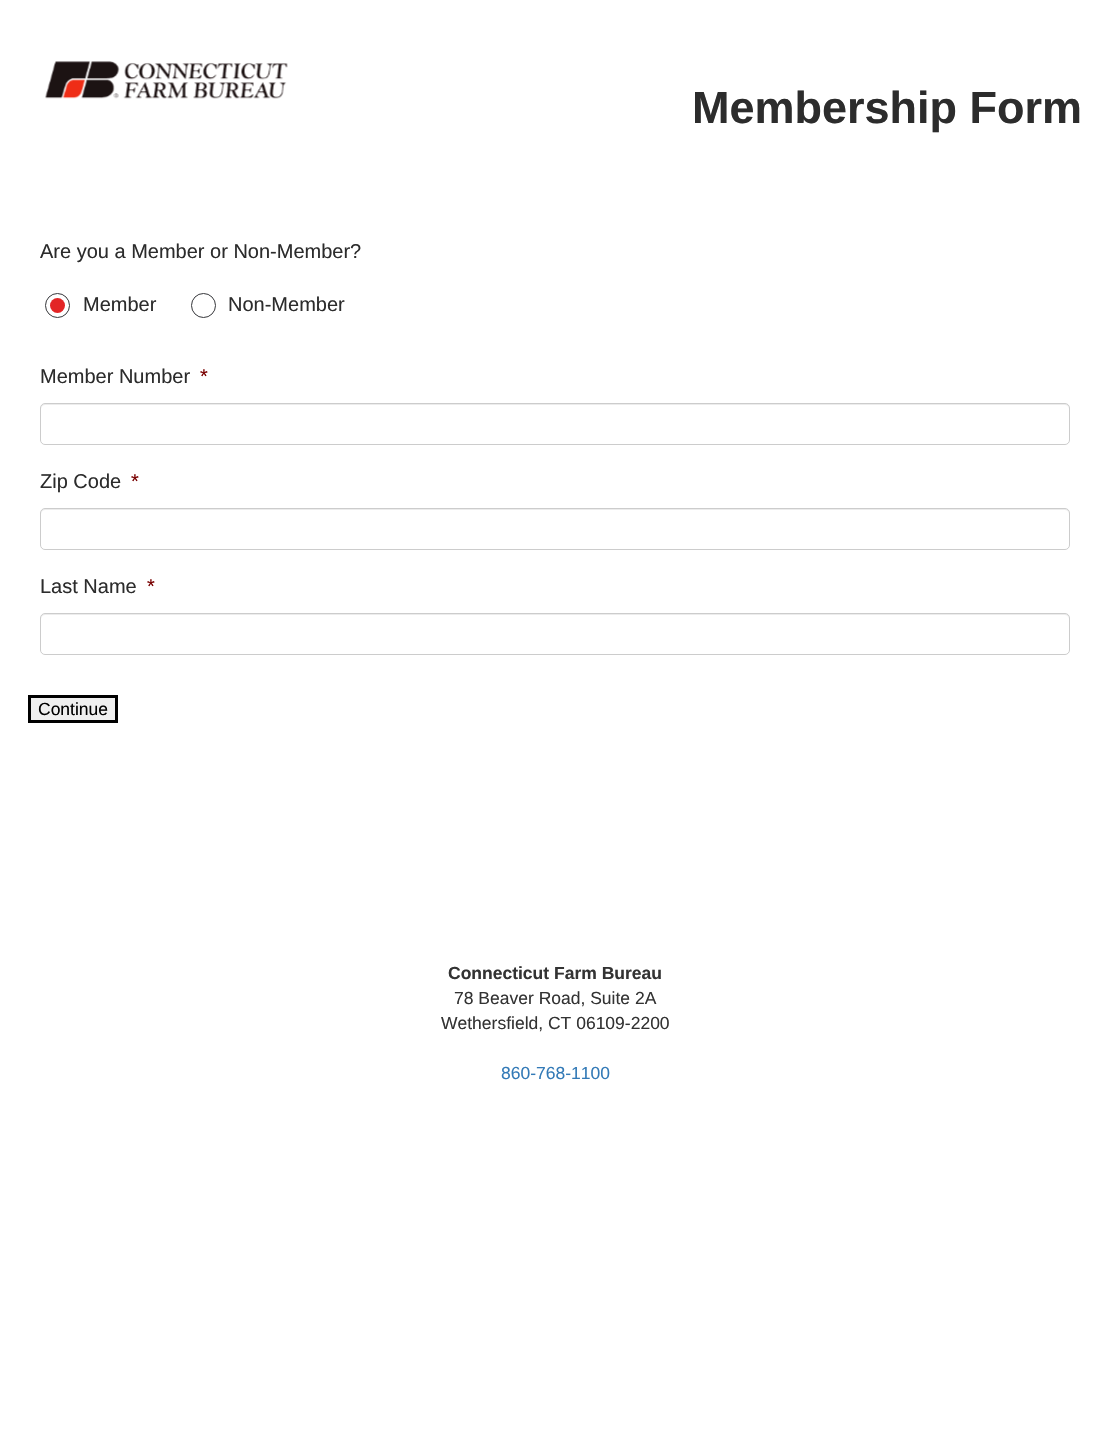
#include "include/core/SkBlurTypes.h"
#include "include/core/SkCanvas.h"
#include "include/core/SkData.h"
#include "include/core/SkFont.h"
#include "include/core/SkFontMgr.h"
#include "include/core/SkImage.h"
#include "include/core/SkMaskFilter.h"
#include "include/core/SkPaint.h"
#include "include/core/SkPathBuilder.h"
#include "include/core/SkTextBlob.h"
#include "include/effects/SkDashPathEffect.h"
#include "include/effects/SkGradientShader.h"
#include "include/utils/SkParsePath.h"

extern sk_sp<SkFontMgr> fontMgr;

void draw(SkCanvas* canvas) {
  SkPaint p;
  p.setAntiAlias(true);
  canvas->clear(SK_ColorWHITE);
  canvas->drawImageRect(SkImages::DeferredFromEncodedData(SkData::MakeFromFileName("images/1.png")), SkRect::MakeLTRB(45, 61, 288, 99), SkSamplingOptions());
  p.setStyle(SkPaint::kStroke_Style);
  p.setStrokeWidth(1);
  p.setColor(SkColorSetRGB(53, 54, 58));
  canvas->drawCircle(57.5f, 305.5f, 12, p);
  p.setStyle(SkPaint::kFill_Style);
  p.setColor(SkColorSetRGB(227, 37, 38));
  canvas->drawCircle(57.5f, 305.5f, 7.5f, p);
  p.setStyle(SkPaint::kStroke_Style);
  p.setColor(SkColorSetRGB(53, 54, 58));
  canvas->drawCircle(203.5f, 305.5f, 12, p);
  p.setStyle(SkPaint::kFill_Style);
  p.setColor(SkColorSetRGB(236, 236, 236));
  canvas->drawPath(SkPathBuilder().moveTo(45, 405).lineTo(1065, 405).cubicTo(1067, 405, 1069, 407, 1069, 409).cubicTo(1069, 406, 1068, 404, 1065, 404).lineTo(45, 404).cubicTo(42, 404, 41, 406, 41, 409).cubicTo(41, 407, 43, 405, 45, 405).close().detach(), p);
  p.setStyle(SkPaint::kStroke_Style);
  p.setColor(SkColorSetRGB(204, 204, 204));
  canvas->drawRoundRect(SkRect::MakeLTRB(40.5f, 403.5f, 1069.5f, 444.5f), 4.5f, 4.5f, p);
  p.setStyle(SkPaint::kFill_Style);
  p.setColor(SkColorSetRGB(236, 236, 236));
  canvas->drawPath(SkPathBuilder().moveTo(45, 510).lineTo(1065, 510).cubicTo(1067, 510, 1069, 512, 1069, 514).cubicTo(1069, 511, 1068, 509, 1065, 509).lineTo(45, 509).cubicTo(42, 509, 41, 511, 41, 514).cubicTo(41, 512, 43, 510, 45, 510).close().detach(), p);
  p.setStyle(SkPaint::kStroke_Style);
  p.setColor(SkColorSetRGB(204, 204, 204));
  canvas->drawRoundRect(SkRect::MakeLTRB(40.5f, 508.5f, 1069.5f, 549.5f), 4.5f, 4.5f, p);
  p.setStyle(SkPaint::kFill_Style);
  p.setColor(SkColorSetRGB(236, 236, 236));
  canvas->drawPath(SkPathBuilder().moveTo(45, 615).lineTo(1065, 615).cubicTo(1067, 615, 1069, 617, 1069, 619).cubicTo(1069, 616, 1068, 614, 1065, 614).lineTo(45, 614).cubicTo(42, 614, 41, 616, 41, 619).cubicTo(41, 617, 43, 615, 45, 615).close().detach(), p);
  p.setStyle(SkPaint::kStroke_Style);
  p.setColor(SkColorSetRGB(204, 204, 204));
  canvas->drawRoundRect(SkRect::MakeLTRB(40.5f, 613.5f, 1069.5f, 654.5f), 4.5f, 4.5f, p);
  p.setStyle(SkPaint::kFill_Style);
  p.setColor(SkColorSetRGB(239, 239, 239));
  canvas->drawRect(SkRect::MakeLTRB(29.5f, 696.5f, 116.5f, 721.5f), p);
  p.setStyle(SkPaint::kStroke_Style);
  p.setStrokeWidth(3);
  p.setColor(SK_ColorBLACK);
  canvas->drawRect(SkRect::MakeLTRB(29.5f, 696.5f, 116.5f, 721.5f), p);
  SkFont font1(fontMgr->matchFamilyStyle("Liberation Sans", SkFontStyle::Bold()), 45);
  font1.setSubpixel(true);
  p.setStyle(SkPaint::kFill_Style);
  p.setColor(SkColorSetRGB(44, 44, 44));
  canvas->drawString("Membership Form", 692, 123, font1, p);
  SkFont font2(fontMgr->matchFamilyStyle("Liberation Sans", SkFontStyle::Normal()), 20);
  font2.setSubpixel(true);
  canvas->drawString("Are you a Member or Non-Member?", 40, 258, font2, p);
  canvas->drawString("Member", 83, 311, font2, p);
  canvas->drawString("Non-Member", 228, 311, font2, p);
  canvas->drawString("Member Number", 40, 383, font2, p);
  p.setColor(SkColorSetRGB(121, 0, 0));
  canvas->drawString("*", 200, 383, font2, p);
  p.setColor(SkColorSetRGB(44, 44, 44));
  canvas->drawString("Zip Code", 40, 488, font2, p);
  p.setColor(SkColorSetRGB(121, 0, 0));
  canvas->drawString("*", 131, 488, font2, p);
  p.setColor(SkColorSetRGB(44, 44, 44));
  canvas->drawString("Last Name", 40, 593, font2, p);
  p.setColor(SkColorSetRGB(121, 0, 0));
  canvas->drawString("*", 147, 593, font2, p);
  SkFont font3(fontMgr->matchFamilyStyle("Liberation Sans", SkFontStyle::Normal()), 17.5f);
  font3.setSubpixel(true);
  p.setColor(SK_ColorBLACK);
  canvas->drawString("Continue", 38, 715, font3, p);
  SkFont font4(fontMgr->matchFamilyStyle("Liberation Sans", SkFontStyle::Bold()), 17.5f);
  font4.setSubpixel(true);
  p.setColor(SkColorSetRGB(51, 51, 51));
  canvas->drawString("Connecticut Farm Bureau", 448, 979, font4, p);
  canvas->drawString("78 Beaver Road, Suite 2A", 454, 1004, font3, p);
  canvas->drawString("Wethersfield, CT 06109-2200", 441, 1029, font3, p);
  p.setColor(SkColorSetRGB(51, 122, 183));
  canvas->drawString("860-768-1100", 501, 1079, font3, p);
}
